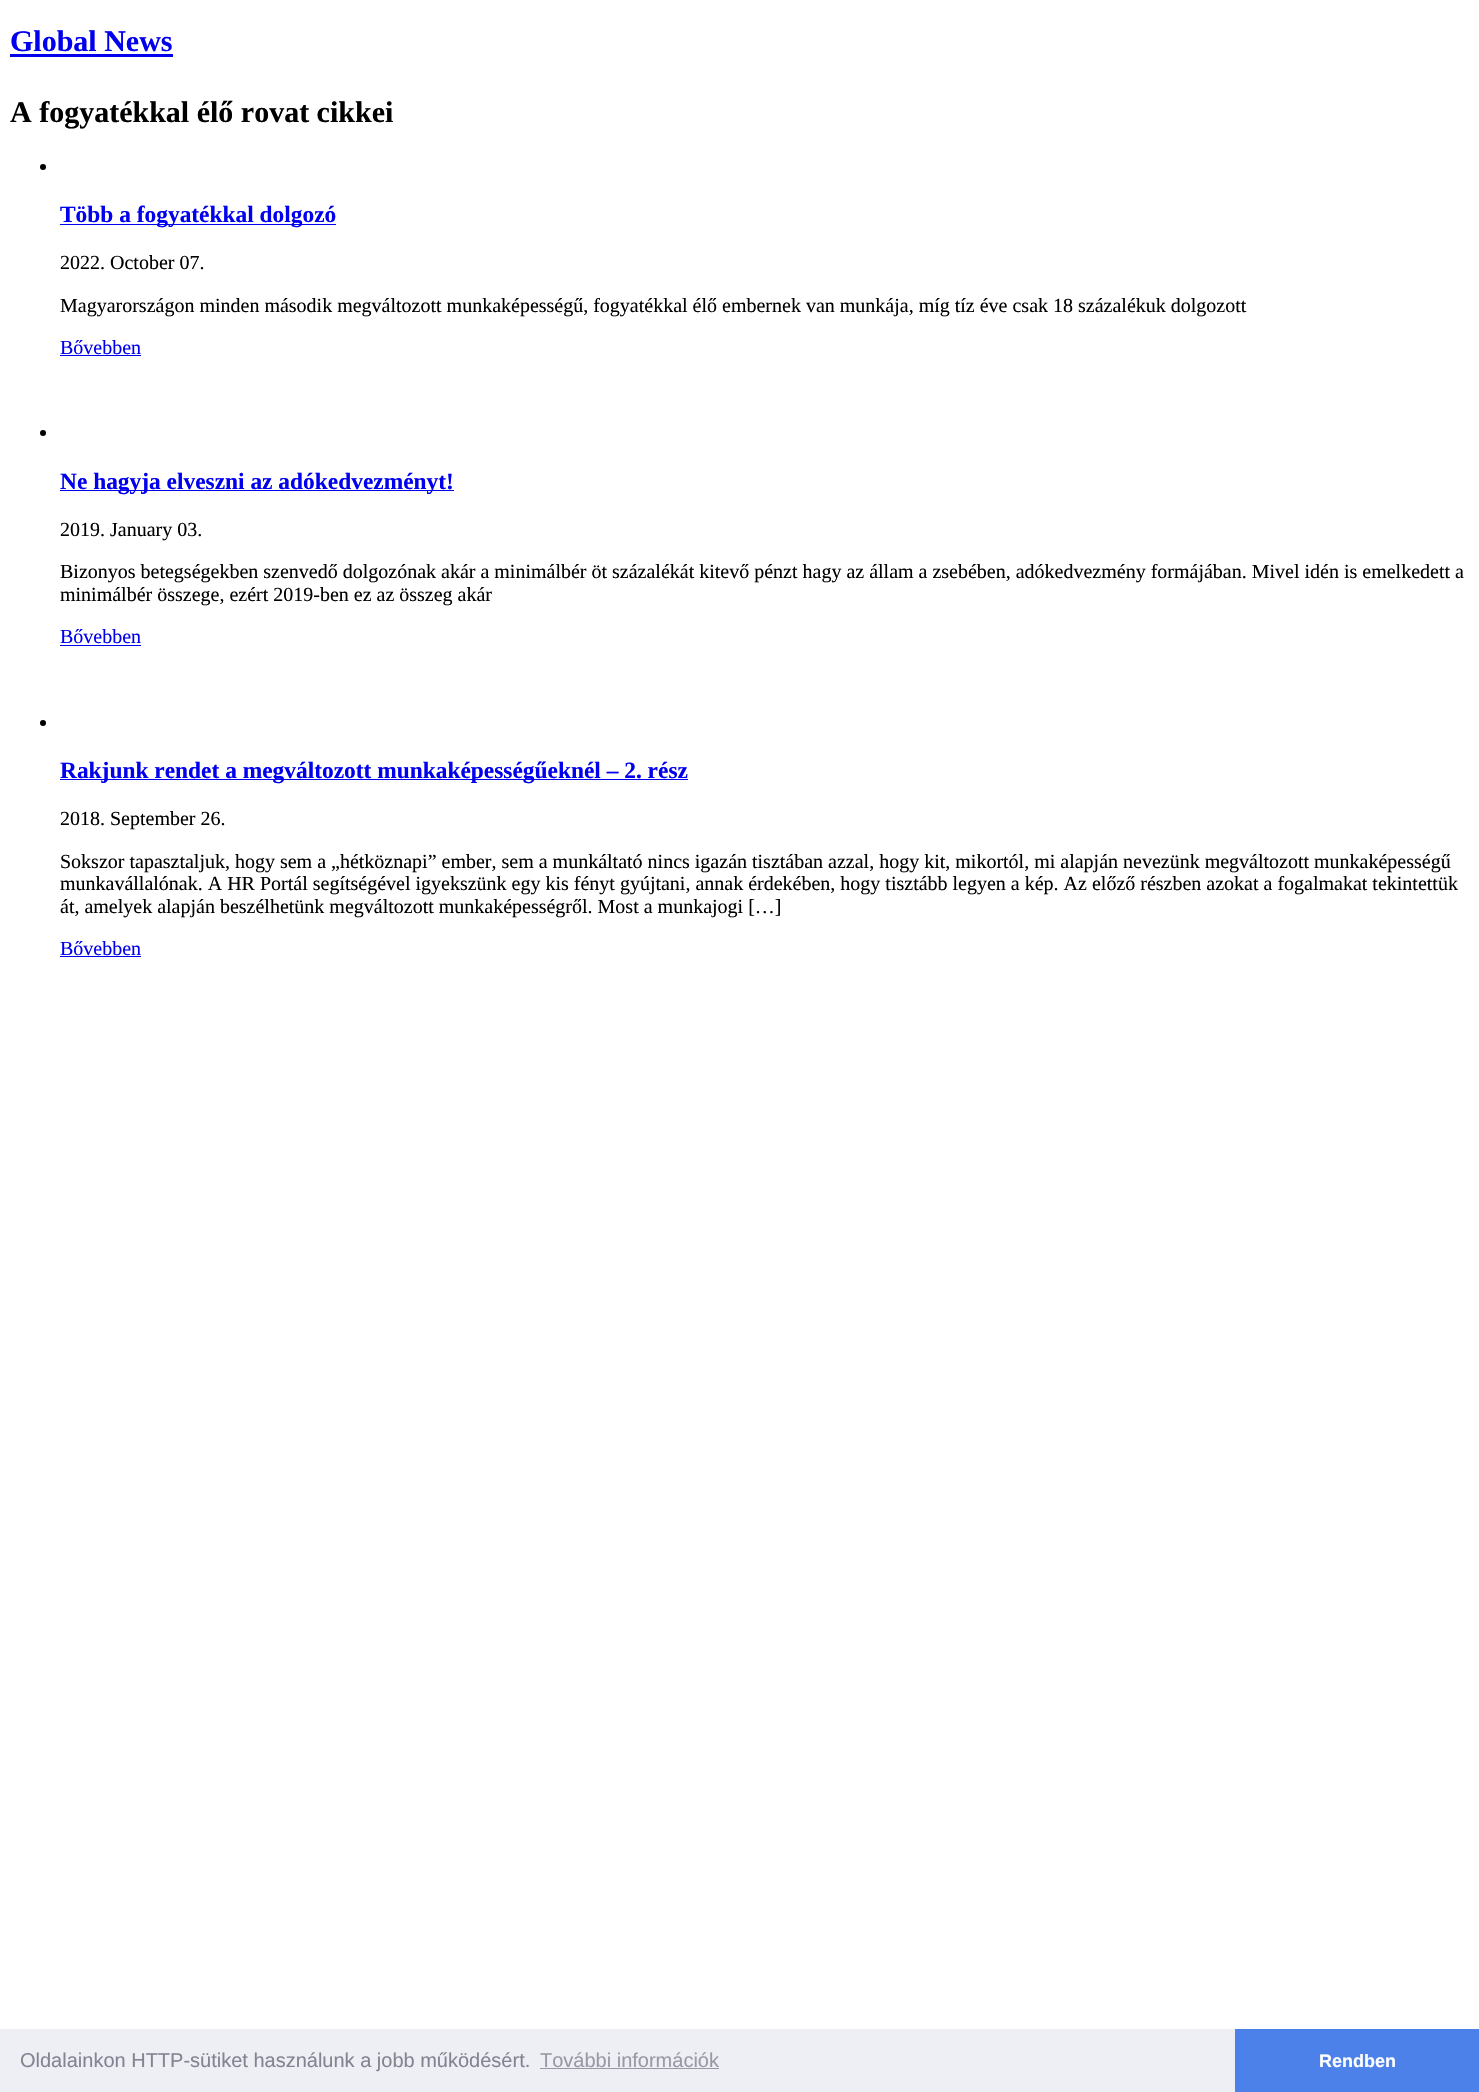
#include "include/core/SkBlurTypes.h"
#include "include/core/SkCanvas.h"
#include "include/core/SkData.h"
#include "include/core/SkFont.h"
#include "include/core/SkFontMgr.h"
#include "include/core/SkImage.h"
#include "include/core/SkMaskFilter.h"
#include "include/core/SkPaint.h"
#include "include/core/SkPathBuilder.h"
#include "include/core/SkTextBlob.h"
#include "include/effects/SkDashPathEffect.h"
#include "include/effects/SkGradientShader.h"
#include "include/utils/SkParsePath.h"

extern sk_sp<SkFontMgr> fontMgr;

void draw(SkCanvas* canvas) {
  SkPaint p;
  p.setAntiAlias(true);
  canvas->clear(SK_ColorWHITE);
  p.setColor(SkColorSetRGB(0, 0, 238));
  canvas->drawRect(SkRect::MakeLTRB(10, 54, 173, 57), p);
  p.setColor(SK_ColorBLACK);
  canvas->drawCircle(43, 167, 3, p);
  p.setColor(SkColorSetRGB(0, 0, 238));
  canvas->drawRect(SkRect::MakeLTRB(60, 224, 336, 225), p);
  canvas->drawRect(SkRect::MakeLTRB(60, 355, 141, 356), p);
  p.setColor(SK_ColorBLACK);
  canvas->drawCircle(43, 433, 3, p);
  p.setColor(SkColorSetRGB(0, 0, 238));
  canvas->drawRect(SkRect::MakeLTRB(60, 490, 454, 491), p);
  canvas->drawRect(SkRect::MakeLTRB(60, 645, 141, 646), p);
  p.setColor(SK_ColorBLACK);
  canvas->drawCircle(43, 723, 3, p);
  p.setColor(SkColorSetRGB(0, 0, 238));
  canvas->drawRect(SkRect::MakeLTRB(60, 779, 688, 780), p);
  canvas->drawRect(SkRect::MakeLTRB(60, 956, 141, 957), p);
  p.setColor(SkColorSetRGB(237, 239, 245));
  canvas->drawRect(SkRect::MakeLTRB(0, 2029, 1235, 2092), p);
  p.setColor(SkColorSetRGB(152, 153, 165));
  canvas->drawRect(SkRect::MakeLTRB(540, 2068, 719, 2069), p);
  p.setColor(SkColorSetRGB(75, 129, 232));
  canvas->drawRect(SkRect::MakeLTRB(1235, 2029, 1479, 2092), p);
  SkFont font1(fontMgr->matchFamilyStyle("Liberation Serif", SkFontStyle::Bold()), 30);
  font1.setSubpixel(true);
  p.setColor(SkColorSetRGB(0, 0, 238));
  canvas->drawString("Global News", 10, 51, font1, p);
  p.setColor(SK_ColorBLACK);
  canvas->drawString("A fogyatékkal élő rovat cikkei", 10, 122, font1, p);
  SkFont font2(fontMgr->matchFamilyStyle("Liberation Serif", SkFontStyle::Bold()), 23.4f);
  font2.setSubpixel(true);
  p.setColor(SkColorSetRGB(0, 0, 238));
  canvas->drawString("Több a fogyatékkal dolgozó", 60, 222, font2, p);
  SkFont font3(fontMgr->matchFamilyStyle("Liberation Serif", SkFontStyle::Normal()), 20);
  font3.setSubpixel(true);
  p.setColor(SK_ColorBLACK);
  canvas->drawString("2022. October 07.", 60, 269, font3, p);
  canvas->drawString("Magyarországon minden második megváltozott munkaképességű, fogyatékkal élő embernek van munkája, míg tíz éve csak 18 százalékuk dolgozott", 60, 312, font3, p);
  p.setColor(SkColorSetRGB(0, 0, 238));
  canvas->drawString("Bővebben", 60, 354, font3, p);
  canvas->drawString("Ne hagyja elveszni az adókedvezményt!", 60, 489, font2, p);
  p.setColor(SK_ColorBLACK);
  canvas->drawString("2019. January 03.", 60, 536, font3, p);
  canvas->drawString("Bizonyos betegségekben szenvedő dolgozónak akár a minimálbér öt százalékát kitevő pénzt hagy az állam a zsebében, adókedvezmény formájában. Mivel idén is emelkedett a", 60, 578, font3, p);
  canvas->drawString("minimálbér összege, ezért 2019-ben ez az összeg akár", 60, 601, font3, p);
  p.setColor(SkColorSetRGB(0, 0, 238));
  canvas->drawString("Bővebben", 60, 643, font3, p);
  canvas->drawString("Rakjunk rendet a megváltozott munkaképességűeknél – 2. rész", 60, 778, font2, p);
  p.setColor(SK_ColorBLACK);
  canvas->drawString("2018. September 26.", 60, 825, font3, p);
  canvas->drawString("Sokszor tapasztaljuk, hogy sem a „hétköznapi” ember, sem a munkáltató nincs igazán tisztában azzal, hogy kit, mikortól, mi alapján nevezünk megváltozott munkaképességű", 60, 868, font3, p);
  canvas->drawString("munkavállalónak. A HR Portál segítségével igyekszünk egy kis fényt gyújtani, annak érdekében, hogy tisztább legyen a kép. Az előző részben azokat a fogalmakat tekintettük", 60, 890, font3, p);
  canvas->drawString("át, amelyek alapján beszélhetünk megváltozott munkaképességről. Most a munkajogi […]", 60, 913, font3, p);
  p.setColor(SkColorSetRGB(0, 0, 238));
  canvas->drawString("Bővebben", 60, 955, font3, p);
  SkFont font4(fontMgr->matchFamilyStyle("Liberation Sans", SkFontStyle::Normal()), 20);
  font4.setSubpixel(true);
  p.setColor(SkColorSetRGB(131, 131, 145));
  canvas->drawString("Oldalainkon HTTP-sütiket használunk a jobb működésért.", 20, 2067, font4, p);
  p.setColor(SkColorSetRGB(152, 153, 165));
  canvas->drawString("További információk", 540, 2067, font4, p);
  SkFont font5(fontMgr->matchFamilyStyle("Liberation Sans", SkFontStyle::Bold()), 18);
  font5.setSubpixel(true);
  p.setColor(SK_ColorWHITE);
  canvas->drawString("Rendben", 1319, 2067, font5, p);
}
